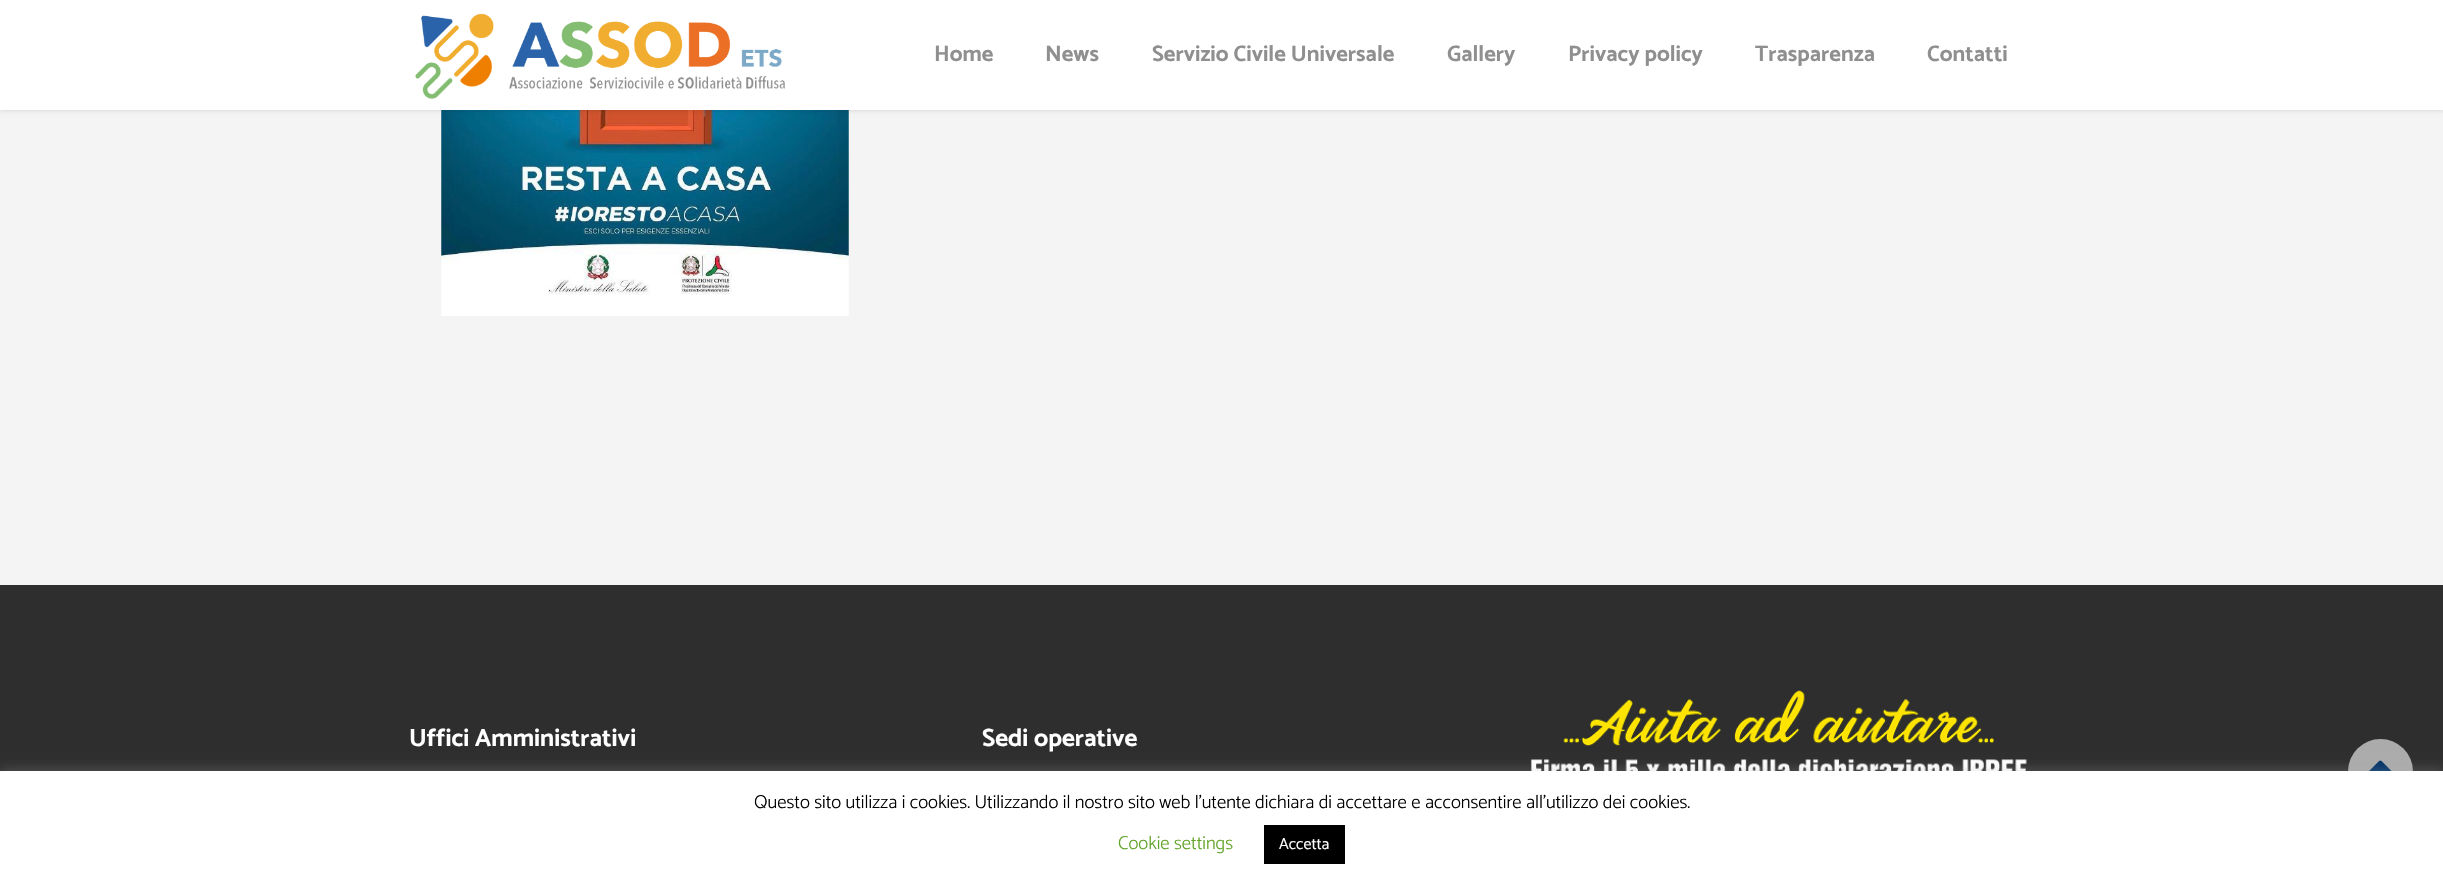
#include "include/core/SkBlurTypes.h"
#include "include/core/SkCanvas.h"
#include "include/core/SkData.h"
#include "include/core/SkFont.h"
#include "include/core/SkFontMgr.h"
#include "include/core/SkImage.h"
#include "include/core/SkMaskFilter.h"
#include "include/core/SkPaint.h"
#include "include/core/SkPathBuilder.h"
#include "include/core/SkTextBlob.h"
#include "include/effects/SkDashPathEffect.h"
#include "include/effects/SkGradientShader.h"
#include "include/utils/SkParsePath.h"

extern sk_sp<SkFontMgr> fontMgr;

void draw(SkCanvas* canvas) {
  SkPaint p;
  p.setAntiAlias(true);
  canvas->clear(SkColorSetRGB(244, 244, 244));
  canvas->drawImageRect(SkImages::DeferredFromEncodedData(SkData::MakeFromFileName("images/2.png")), SkRect::MakeLTRB(441, 110, 849, 316), SkSamplingOptions());
  p.setColor(SkColorSetARGB(28, 0, 0, 0));
  p.setMaskFilter(SkMaskFilter::MakeBlur(kNormal_SkBlurStyle, 2));
  canvas->drawRect(SkRect::MakeLTRB(0, 1, 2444, 111), p);
  p.setMaskFilter(nullptr);
  p.setColor(SK_ColorWHITE);
  canvas->drawRect(SkRect::MakeLTRB(0, 0, 2443, 110), p);
  canvas->drawImageRect(SkImages::DeferredFromEncodedData(SkData::MakeFromFileName("images/1.png")), SkRect::MakeLTRB(415, 13, 785, 99), SkSamplingOptions());
  p.setColor(SkColorSetRGB(46, 46, 46));
  canvas->drawRect(SkRect::MakeLTRB(0, 585, 2443, 771), p);
  canvas->drawImageRect(SkImages::DeferredFromEncodedData(SkData::MakeFromFileName("images/3.png")), SkRect::MakeLTRB(1530, 690, 2027, 771), SkSamplingOptions());
  p.setColor(SkColorSetRGB(171, 171, 171));
  canvas->drawCircle(2380.5f, 771.5f, 32.5f, p);
  canvas->drawImageRect(SkImages::DeferredFromEncodedData(SkData::MakeFromFileName("images/4.png")), SkRect::MakeLTRB(2369, 760, 2392, 771), SkSamplingOptions());
  p.setColor(SkColorSetARGB(77, 172, 171, 171));
  p.setMaskFilter(SkMaskFilter::MakeBlur(kNormal_SkBlurStyle, 6));
  canvas->drawRect(SkRect::MakeLTRB(0, 770, 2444, 884), p);
  p.setMaskFilter(nullptr);
  p.setColor(SK_ColorWHITE);
  canvas->drawRect(SkRect::MakeLTRB(0, 771, 2443, 884), p);
  p.setColor(SK_ColorBLACK);
  canvas->drawRect(SkRect::MakeLTRB(1264, 825, 1345, 864), p);
  SkFont font1(fontMgr->matchFamilyStyle("Catamaran", SkFontStyle::Bold()), 22.5f);
  font1.setSubpixel(true);
  p.setColor(SkColorSetRGB(143, 143, 143));
  canvas->drawString("Home", 934, 61, font1, p);
  canvas->drawString("News", 1045, 61, font1, p);
  canvas->drawString("Servizio Civile Universale", 1152, 61, font1, p);
  canvas->drawString("Gallery", 1447, 61, font1, p);
  canvas->drawString("Privacy policy", 1568, 61, font1, p);
  canvas->drawString("Trasparenza", 1755, 61, font1, p);
  canvas->drawString("Contatti", 1927, 61, font1, p);
  SkFont font2(fontMgr->matchFamilyStyle("Catamaran", SkFontStyle::Bold()), 25);
  font2.setSubpixel(true);
  p.setColor(SK_ColorWHITE);
  canvas->drawString("Uffici Amministrativi", 409, 746, font2, p);
  canvas->drawString("Sedi operative", 982, 746, font2, p);
  SkFont font3(fontMgr->matchFamilyStyle("Catamaran", SkFontStyle(300, SkFontStyle::kNormal_Width, SkFontStyle::kUpright_Slant)), 18.75f);
  font3.setSubpixel(true);
  p.setColor(SK_ColorBLACK);
  canvas->drawString("Questo sito utilizza i cookies. Utilizzando il nostro sito web l'utente dichiara di accettare e acconsentire all’utilizzo dei cookies.", 754, 808, font3, p);
  p.setColor(SkColorSetRGB(98, 163, 41));
  canvas->drawString("Cookie settings", 1118, 849, font3, p);
  SkFont font4(fontMgr->matchFamilyStyle("Catamaran", SkFontStyle::Normal()), 16);
  font4.setSubpixel(true);
  p.setColor(SK_ColorWHITE);
  canvas->drawString("Accetta", 1279, 849, font4, p);
}
